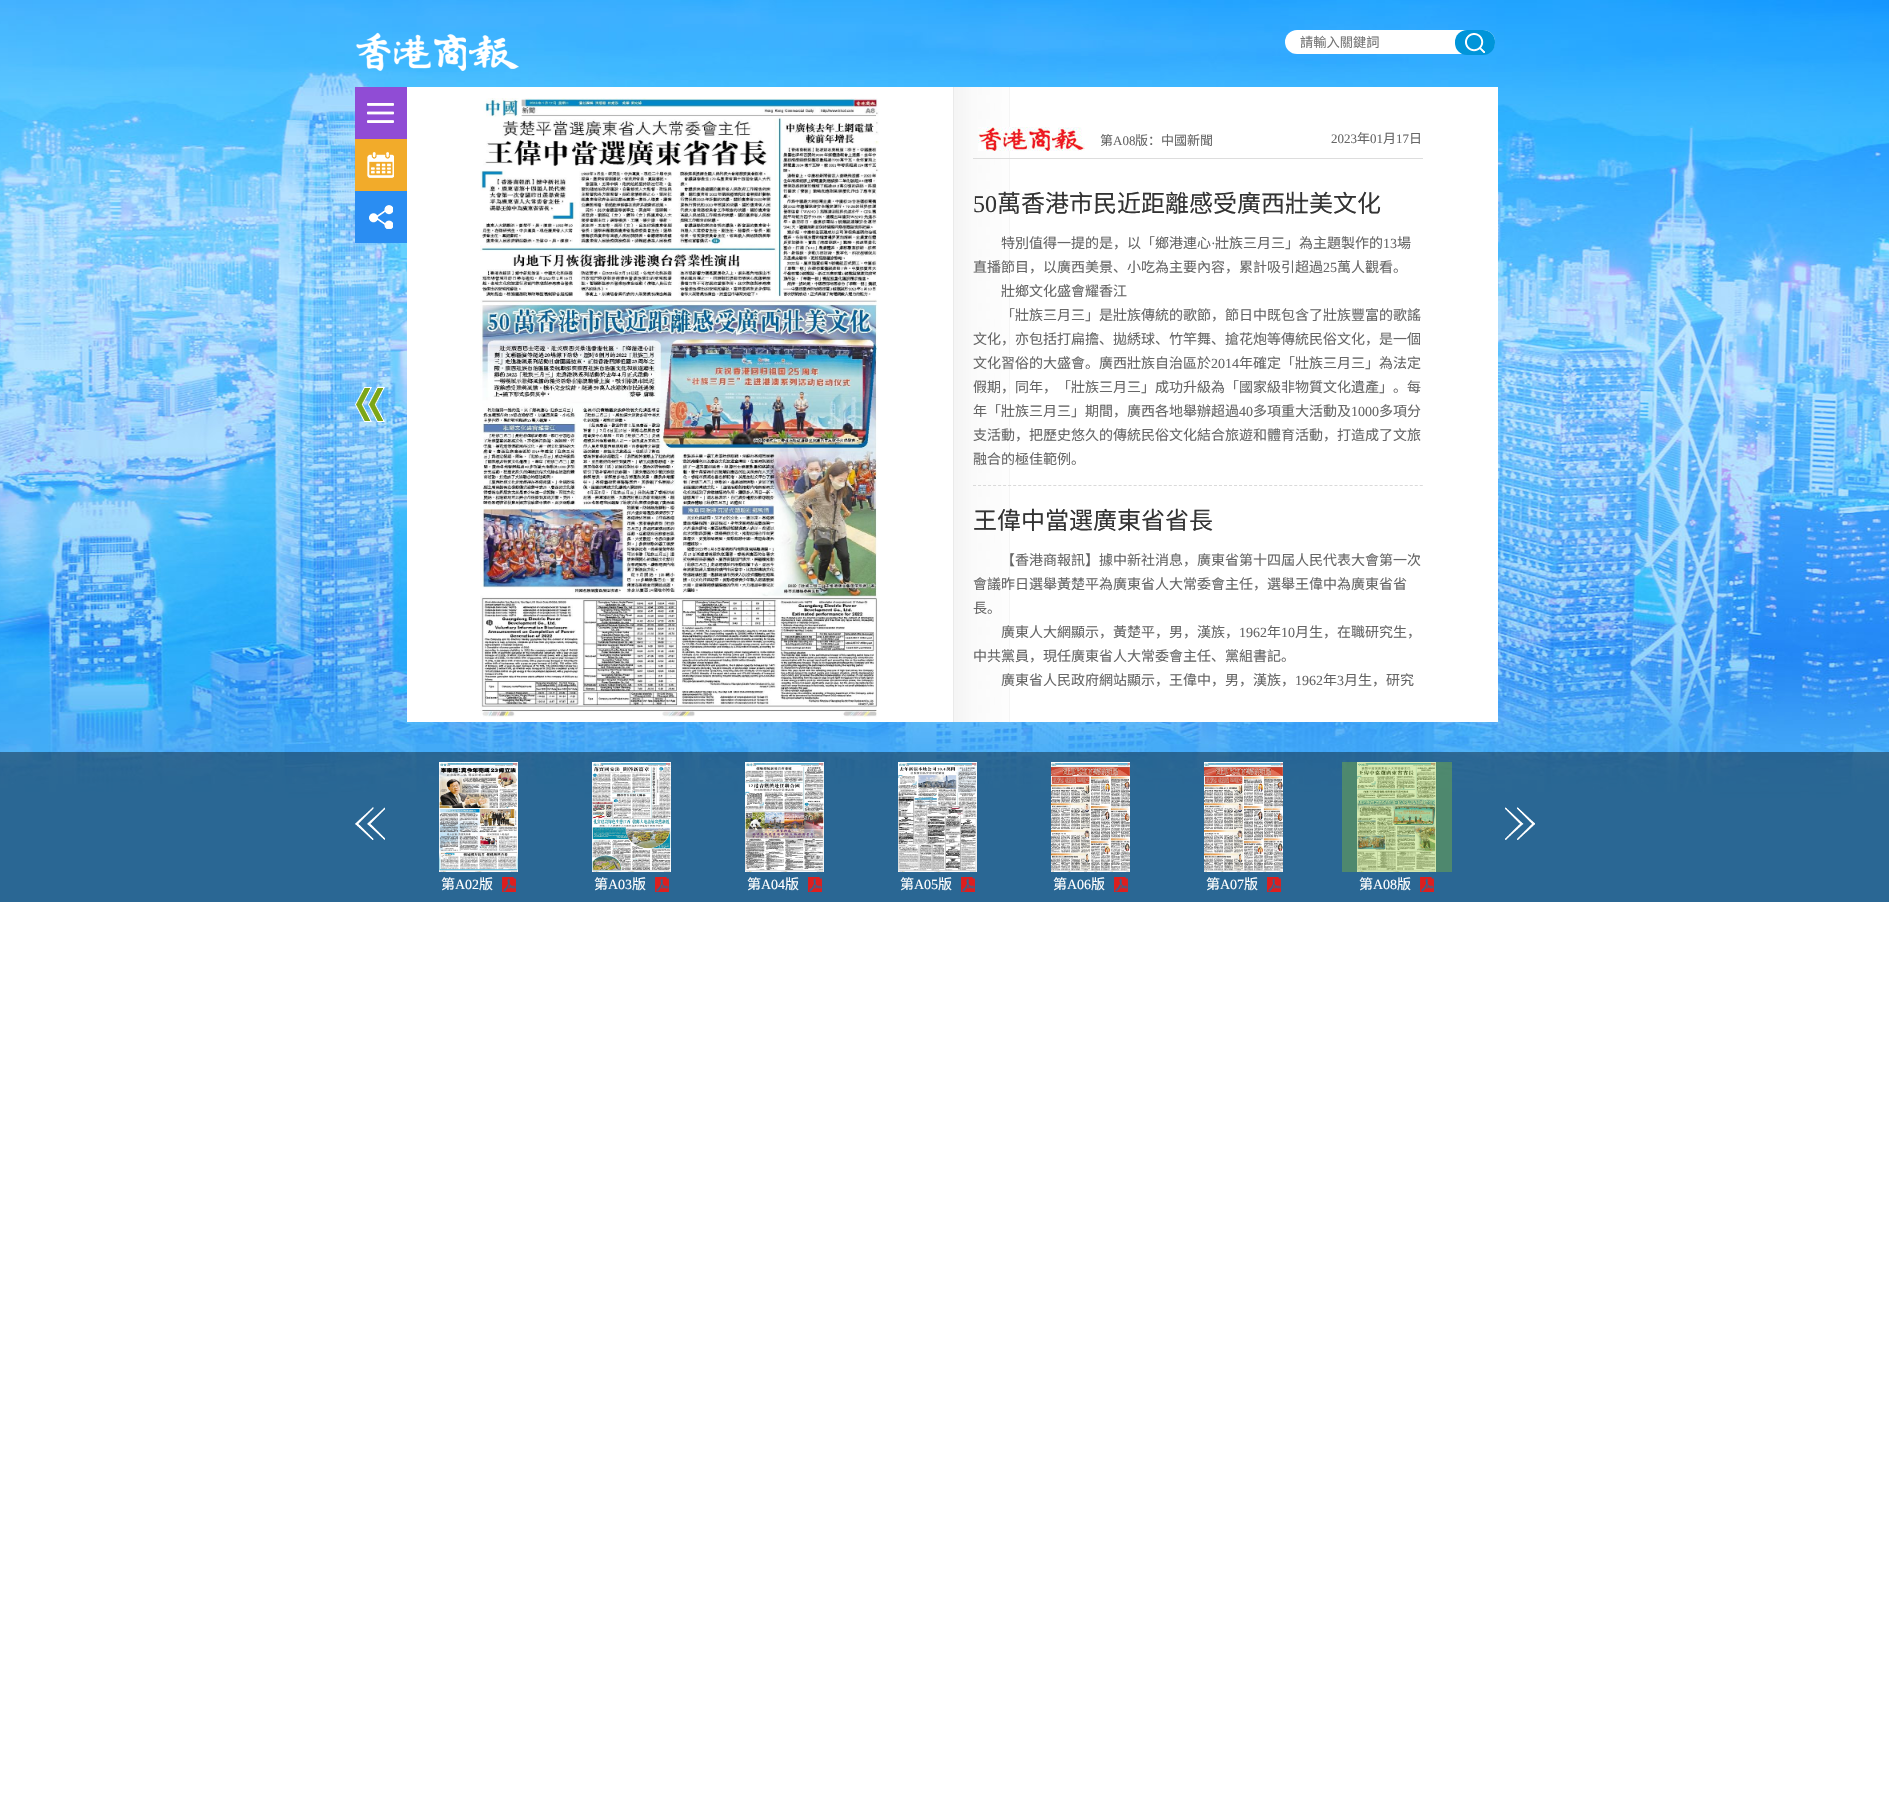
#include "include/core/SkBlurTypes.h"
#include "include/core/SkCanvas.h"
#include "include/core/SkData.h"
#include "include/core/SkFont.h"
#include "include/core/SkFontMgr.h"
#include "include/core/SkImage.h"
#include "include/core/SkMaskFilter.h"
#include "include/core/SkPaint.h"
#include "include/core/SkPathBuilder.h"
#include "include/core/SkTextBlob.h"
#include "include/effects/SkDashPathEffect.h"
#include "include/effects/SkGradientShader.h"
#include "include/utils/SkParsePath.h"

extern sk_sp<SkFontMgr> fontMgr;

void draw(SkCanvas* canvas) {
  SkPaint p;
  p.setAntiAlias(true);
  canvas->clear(SK_ColorWHITE);
  canvas->drawImageRect(SkImages::DeferredFromEncodedData(SkData::MakeFromFileName("images/1.png")), SkRect::MakeLTRB(0, 0, 1889, 902), SkSamplingOptions());
  canvas->drawImageRect(SkImages::DeferredFromEncodedData(SkData::MakeFromFileName("images/2.png")), SkRect::MakeLTRB(355, 32, 519, 71), SkSamplingOptions());
  p.setColor(SK_ColorWHITE);
  canvas->drawRoundRect(SkRect::MakeLTRB(1285, 30, 1495, 54), 12, 12, p);
  p.setColor(SkColorSetRGB(0, 149, 217));
  canvas->drawRoundRect(SkRect::MakeLTRB(1455, 30, 1495, 55), 12, 12, p);
  canvas->drawImageRect(SkImages::DeferredFromEncodedData(SkData::MakeFromFileName("images/3.png")), SkRect::MakeLTRB(1465, 33, 1485, 53), SkSamplingOptions());
  p.setColor(SkColorSetRGB(144, 76, 213));
  canvas->drawRect(SkRect::MakeLTRB(355, 87, 407, 139), p);
  canvas->drawImageRect(SkImages::DeferredFromEncodedData(SkData::MakeFromFileName("images/4.png")), SkRect::MakeLTRB(367, 103, 394, 123), SkSamplingOptions());
  p.setColor(SkColorSetRGB(242, 171, 42));
  canvas->drawRect(SkRect::MakeLTRB(355, 139, 407, 191), p);
  canvas->drawImageRect(SkImages::DeferredFromEncodedData(SkData::MakeFromFileName("images/5.png")), SkRect::MakeLTRB(367, 152, 394, 178), SkSamplingOptions());
  p.setColor(SkColorSetRGB(42, 141, 242));
  canvas->drawRect(SkRect::MakeLTRB(355, 191, 407, 243), p);
  canvas->drawImageRect(SkImages::DeferredFromEncodedData(SkData::MakeFromFileName("images/6.png")), SkRect::MakeLTRB(369, 205, 393, 229), SkSamplingOptions());
  p.setColor(SK_ColorWHITE);
  canvas->drawRect(SkRect::MakeLTRB(407, 87, 953, 722), p);
  p.setColor(SkColorSetRGB(234, 234, 234));
  canvas->drawRect(SkRect::MakeLTRB(953, 87, 954, 722), p);
  canvas->drawImageRect(SkImages::DeferredFromEncodedData(SkData::MakeFromFileName("images/7.png")), SkRect::MakeLTRB(480, 98, 879, 717), SkSamplingOptions());
  p.setColor(SK_ColorWHITE);
  canvas->drawRect(SkRect::MakeLTRB(1010, 87, 1498, 722), p);
  canvas->drawImageRect(SkImages::DeferredFromEncodedData(SkData::MakeFromFileName("images/8.png")), SkRect::MakeLTRB(954, 87, 1010, 722), SkSamplingOptions());
  p.setColor(SkColorSetRGB(221, 221, 221));
  canvas->drawRect(SkRect::MakeLTRB(973, 158, 1423, 159), p);
  canvas->drawImageRect(SkImages::DeferredFromEncodedData(SkData::MakeFromFileName("images/9.png")), SkRect::MakeLTRB(978, 127, 1085, 151), SkSamplingOptions());
  p.setStyle(SkPaint::kStroke_Style);
  p.setStrokeWidth(1);
  p.setColor(SkColorSetRGB(218, 218, 218));
  p.setPathEffect(SkDashPathEffect::Make({{3, 2.02f}}, 0));
  canvas->drawPath(SkPathBuilder().moveTo(973, 485.5f).lineTo(1423, 485.5f).detach(), p);
  p.setPathEffect(nullptr);
  canvas->drawImageRect(SkImages::DeferredFromEncodedData(SkData::MakeFromFileName("images/10.png")), SkRect::MakeLTRB(355, 387, 385, 422), SkSamplingOptions());
  p.setStyle(SkPaint::kFill_Style);
  p.setColor(SkColorSetARGB(102, 0, 0, 0));
  canvas->drawRect(SkRect::MakeLTRB(0, 752, 1889, 902), p);
  canvas->drawImageRect(SkImages::DeferredFromEncodedData(SkData::MakeFromFileName("images/11.png")), SkRect::MakeLTRB(355, 807, 385, 840), SkSamplingOptions());
  canvas->drawImageRect(SkImages::DeferredFromEncodedData(SkData::MakeFromFileName("images/12.png")), SkRect::MakeLTRB(1505, 807, 1535, 840), SkSamplingOptions());
  canvas->drawImageRect(SkImages::DeferredFromEncodedData(SkData::MakeFromFileName("images/13.png")), SkRect::MakeLTRB(439, 762, 518, 872), SkSamplingOptions());
  canvas->drawImageRect(SkImages::DeferredFromEncodedData(SkData::MakeFromFileName("images/14.png")), SkRect::MakeLTRB(502, 877, 516, 892), SkSamplingOptions());
  canvas->drawImageRect(SkImages::DeferredFromEncodedData(SkData::MakeFromFileName("images/15.png")), SkRect::MakeLTRB(592, 762, 671, 872), SkSamplingOptions());
  canvas->drawImageRect(SkImages::DeferredFromEncodedData(SkData::MakeFromFileName("images/14.png")), SkRect::MakeLTRB(655, 877, 669, 892), SkSamplingOptions());
  canvas->drawImageRect(SkImages::DeferredFromEncodedData(SkData::MakeFromFileName("images/16.png")), SkRect::MakeLTRB(745, 762, 824, 872), SkSamplingOptions());
  canvas->drawImageRect(SkImages::DeferredFromEncodedData(SkData::MakeFromFileName("images/14.png")), SkRect::MakeLTRB(808, 877, 822, 892), SkSamplingOptions());
  canvas->drawImageRect(SkImages::DeferredFromEncodedData(SkData::MakeFromFileName("images/17.png")), SkRect::MakeLTRB(898, 762, 977, 872), SkSamplingOptions());
  canvas->drawImageRect(SkImages::DeferredFromEncodedData(SkData::MakeFromFileName("images/14.png")), SkRect::MakeLTRB(961, 877, 975, 892), SkSamplingOptions());
  canvas->drawImageRect(SkImages::DeferredFromEncodedData(SkData::MakeFromFileName("images/18.png")), SkRect::MakeLTRB(1051, 762, 1130, 872), SkSamplingOptions());
  canvas->drawImageRect(SkImages::DeferredFromEncodedData(SkData::MakeFromFileName("images/14.png")), SkRect::MakeLTRB(1114, 877, 1128, 892), SkSamplingOptions());
  canvas->drawImageRect(SkImages::DeferredFromEncodedData(SkData::MakeFromFileName("images/18.png")), SkRect::MakeLTRB(1204, 762, 1283, 872), SkSamplingOptions());
  canvas->drawImageRect(SkImages::DeferredFromEncodedData(SkData::MakeFromFileName("images/14.png")), SkRect::MakeLTRB(1267, 877, 1281, 892), SkSamplingOptions());
  canvas->drawImageRect(SkImages::DeferredFromEncodedData(SkData::MakeFromFileName("images/19.png")), SkRect::MakeLTRB(1357, 762, 1436, 872), SkSamplingOptions());
  p.setColor(SkColorSetARGB(89, 143, 198, 40));
  canvas->drawRect(SkRect::MakeLTRB(1342, 762, 1452, 872), p);
  canvas->drawImageRect(SkImages::DeferredFromEncodedData(SkData::MakeFromFileName("images/14.png")), SkRect::MakeLTRB(1420, 877, 1434, 892), SkSamplingOptions());
  SkFont font1(fontMgr->matchFamilyStyle("Noto Sans CJK SC", SkFontStyle::Normal()), 13.25f);
  font1.setSubpixel(true);
  p.setColor(SkColorSetRGB(117, 117, 117));
  canvas->drawString("請輸入關鍵詞", 1300, 47, font1, p);
  SkFont font2(fontMgr->matchFamilyStyle("Noto Sans CJK SC", SkFontStyle::Normal()), 13);
  font2.setSubpixel(true);
  p.setColor(SkColorSetRGB(102, 102, 102));
  canvas->drawString("第", 1100, 145, font2, p);
  SkFont font3(fontMgr->matchFamilyStyle("Liberation Serif", SkFontStyle::Normal()), 13);
  font3.setSubpixel(true);
  canvas->drawString("A08", 1113, 145, font3, p);
  canvas->drawString("版：中國新聞", 1135, 145, font2, p);
  canvas->drawString("2023", 1331, 143, font3, p);
  canvas->drawString("年", 1357, 143, font2, p);
  canvas->drawString("01", 1370, 143, font3, p);
  canvas->drawString("月", 1383, 143, font2, p);
  canvas->drawString("17", 1396, 143, font3, p);
  canvas->drawString("日", 1409, 143, font2, p);
  SkFont font4(fontMgr->matchFamilyStyle("Liberation Serif", SkFontStyle::Normal()), 24);
  font4.setSubpixel(true);
  p.setColor(SkColorSetRGB(51, 51, 51));
  canvas->drawString("50", 973, 212, font4, p);
  SkFont font5(fontMgr->matchFamilyStyle("Noto Sans CJK SC", SkFontStyle::Normal()), 24);
  font5.setSubpixel(true);
  canvas->drawString("萬香港市民近距離感受廣西壯美文化", 997, 212, font5, p);
  SkFont font6(fontMgr->matchFamilyStyle("Noto Sans CJK SC", SkFontStyle::Normal()), 14);
  font6.setSubpixel(true);
  p.setColor(SkColorSetRGB(102, 102, 102));
  canvas->drawString("特別值得一提的是，以「鄉港連心", 1001, 248, font6, p);
  SkFont font7(fontMgr->matchFamilyStyle("Liberation Serif", SkFontStyle::Normal()), 14);
  font7.setSubpixel(true);
  canvas->drawString("·", 1211, 248, font7, p);
  canvas->drawString("壯族三月三」為主題製作的", 1215, 248, font6, p);
  canvas->drawString("13", 1383, 248, font7, p);
  canvas->drawString("場", 1397, 248, font6, p);
  canvas->drawString("直播節目，以廣西美景、小吃為主要內容，累計吸引超過", 973, 272, font6, p);
  canvas->drawString("25", 1323, 272, font7, p);
  canvas->drawString("萬人觀看。", 1337, 272, font6, p);
  canvas->drawString("壯鄉文化盛會耀香江", 1001, 296, font6, p);
  canvas->drawString("「壯族三月三」是壯族傳統的歌節，節日中既包含了壯族豐富的歌謠", 1001, 320, font6, p);
  canvas->drawString("文化，亦包括打扁擔、拋綉球、竹竿舞、搶花炮等傳統民俗文化，是一個", 973, 344, font6, p);
  canvas->drawString("文化習俗的大盛會。廣西壯族自治區於", 973, 368, font6, p);
  canvas->drawString("2014", 1211, 368, font7, p);
  canvas->drawString("年確定「壯族三月三」為法定", 1239, 368, font6, p);
  canvas->drawString("假期，同年，「壯族三月三」成功升級為「國家級非物質文化遺產」。每", 973, 392, font6, p);
  canvas->drawString("年「壯族三月三」期間，廣西各地舉辦超過", 973, 416, font6, p);
  canvas->drawString("40", 1239, 416, font7, p);
  canvas->drawString("多項重大活動及", 1253, 416, font6, p);
  canvas->drawString("1000", 1351, 416, font7, p);
  canvas->drawString("多項分", 1379, 416, font6, p);
  canvas->drawString("支活動，把歷史悠久的傳統民俗文化結合旅遊和體育活動，打造成了文旅", 973, 440, font6, p);
  canvas->drawString("融合的極佳範例。", 973, 464, font6, p);
  p.setColor(SkColorSetRGB(51, 51, 51));
  canvas->drawString("王偉中當選廣東省省長", 973, 529, font5, p);
  p.setColor(SkColorSetRGB(102, 102, 102));
  canvas->drawString("【香港商報訊】據中新社消息，廣東省第十四屆人民代表大會第一次", 1001, 565, font6, p);
  canvas->drawString("會議昨日選舉黃楚平為廣東省人大常委會主任，選舉王偉中為廣東省省", 973, 589, font6, p);
  canvas->drawString("長。", 973, 613, font6, p);
  canvas->drawString("廣東人大網顯示，黃楚平，男，漢族，", 1001, 637, font6, p);
  canvas->drawString("1962", 1239, 637, font7, p);
  canvas->drawString("年", 1267, 637, font6, p);
  canvas->drawString("10", 1281, 637, font7, p);
  canvas->drawString("月生，在職研究生，", 1295, 637, font6, p);
  canvas->drawString("中共黨員，現任廣東省人大常委會主任、黨組書記。", 973, 661, font6, p);
  canvas->drawString("廣東省人民政府網站顯示，王偉中，男，漢族，", 1001, 685, font6, p);
  canvas->drawString("1962", 1295, 685, font7, p);
  canvas->drawString("年", 1323, 685, font6, p);
  canvas->drawString("3", 1337, 685, font7, p);
  canvas->drawString("月生，研究", 1344, 685, font6, p);
  p.setColor(SK_ColorWHITE);
  canvas->drawString("第", 441, 889, font6, p);
  canvas->drawString("A02", 455, 889, font7, p);
  canvas->drawString("版", 479, 889, font6, p);
  canvas->drawString("第", 594, 889, font6, p);
  canvas->drawString("A03", 608, 889, font7, p);
  canvas->drawString("版", 632, 889, font6, p);
  canvas->drawString("第", 747, 889, font6, p);
  canvas->drawString("A04", 761, 889, font7, p);
  canvas->drawString("版", 785, 889, font6, p);
  canvas->drawString("第", 900, 889, font6, p);
  canvas->drawString("A05", 914, 889, font7, p);
  canvas->drawString("版", 938, 889, font6, p);
  canvas->drawString("第", 1053, 889, font6, p);
  canvas->drawString("A06", 1067, 889, font7, p);
  canvas->drawString("版", 1091, 889, font6, p);
  canvas->drawString("第", 1206, 889, font6, p);
  canvas->drawString("A07", 1220, 889, font7, p);
  canvas->drawString("版", 1244, 889, font6, p);
  canvas->drawString("第", 1359, 889, font6, p);
  canvas->drawString("A08", 1373, 889, font7, p);
  canvas->drawString("版", 1397, 889, font6, p);
}
